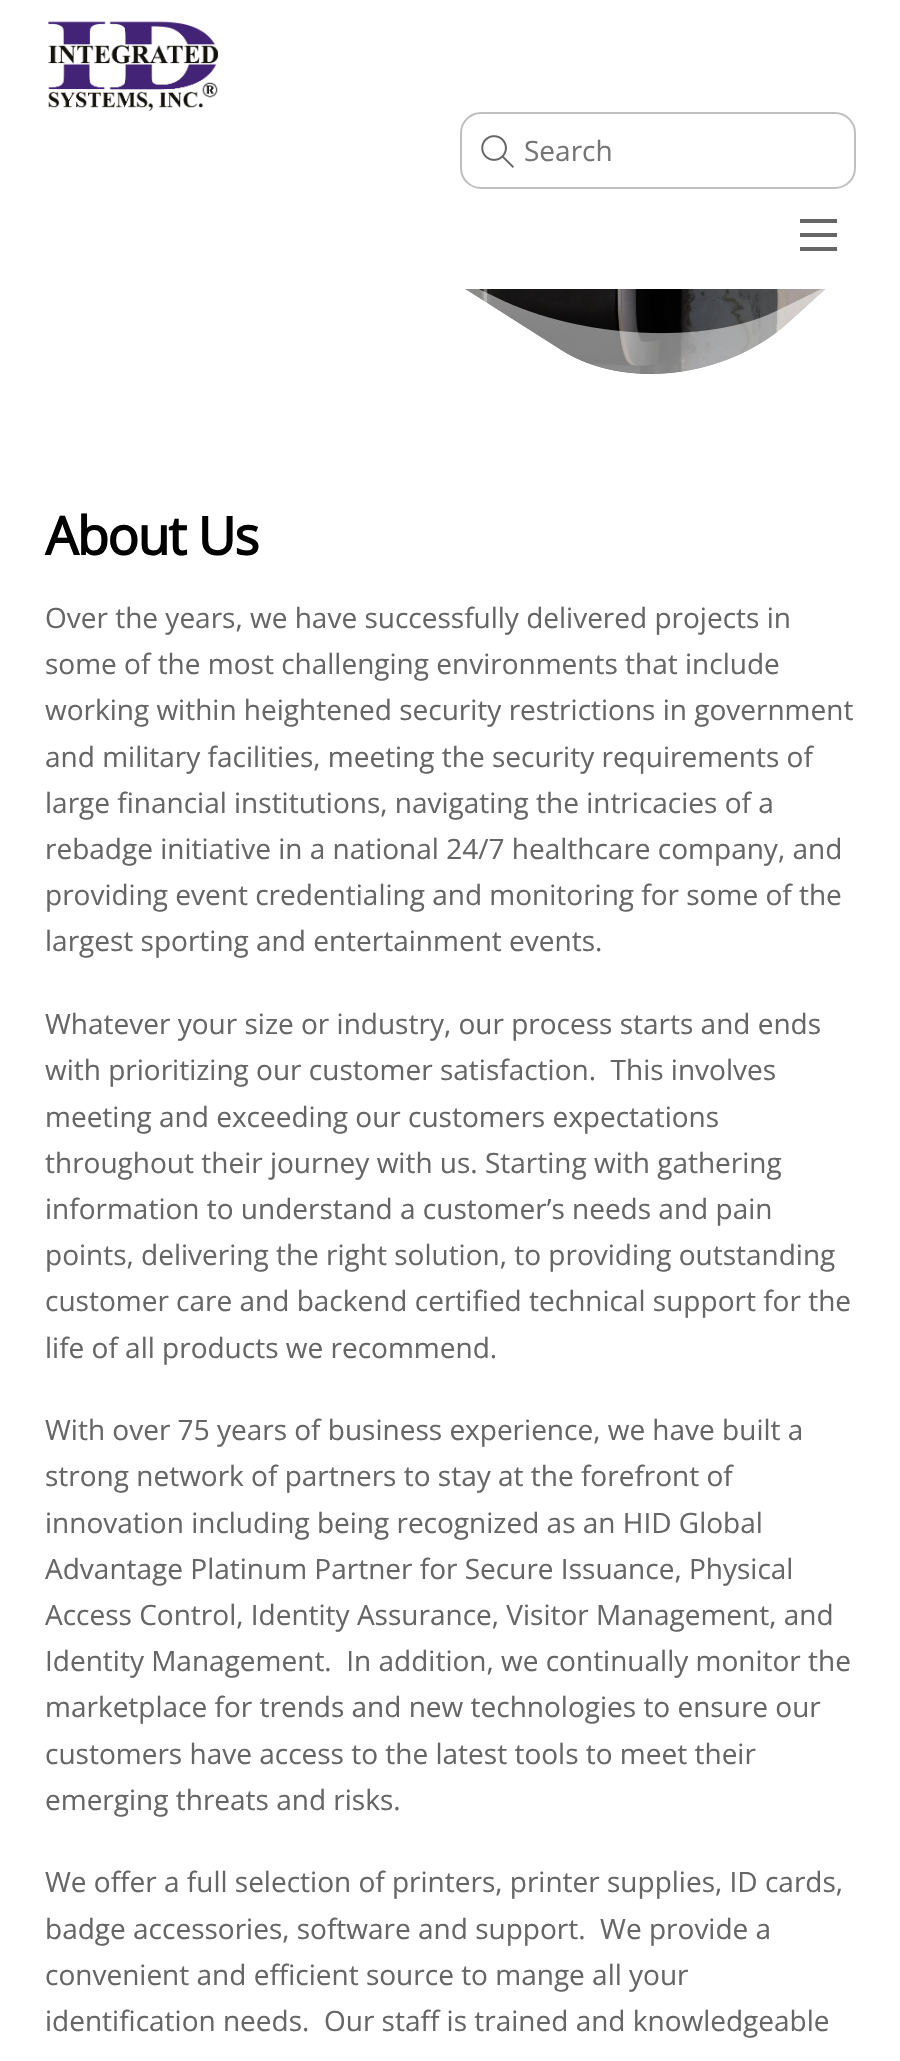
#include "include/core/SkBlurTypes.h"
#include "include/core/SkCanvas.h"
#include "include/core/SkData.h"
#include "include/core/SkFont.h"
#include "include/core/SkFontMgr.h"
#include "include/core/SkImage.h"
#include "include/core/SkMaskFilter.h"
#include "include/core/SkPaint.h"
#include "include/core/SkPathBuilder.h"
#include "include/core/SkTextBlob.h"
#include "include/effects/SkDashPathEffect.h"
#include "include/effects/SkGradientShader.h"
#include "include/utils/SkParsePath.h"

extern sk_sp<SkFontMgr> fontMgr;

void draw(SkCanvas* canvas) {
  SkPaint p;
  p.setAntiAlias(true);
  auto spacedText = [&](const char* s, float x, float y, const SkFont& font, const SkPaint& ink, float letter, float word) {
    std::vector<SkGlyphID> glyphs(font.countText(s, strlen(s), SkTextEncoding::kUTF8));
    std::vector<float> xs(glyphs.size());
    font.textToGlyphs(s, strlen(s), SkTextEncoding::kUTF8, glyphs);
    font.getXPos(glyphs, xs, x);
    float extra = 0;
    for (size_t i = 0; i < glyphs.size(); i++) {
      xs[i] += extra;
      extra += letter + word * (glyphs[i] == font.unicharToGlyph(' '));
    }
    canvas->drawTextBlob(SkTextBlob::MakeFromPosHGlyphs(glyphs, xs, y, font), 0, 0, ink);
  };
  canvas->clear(SK_ColorWHITE);
  canvas->drawImageRect(SkImages::DeferredFromEncodedData(SkData::MakeFromFileName("images/1.png")), SkRect::MakeLTRB(48, 21, 219, 111), SkSamplingOptions());
  p.setStyle(SkPaint::kStroke_Style);
  p.setStrokeWidth(2);
  p.setColor(SkColorSetRGB(191, 191, 191));
  canvas->drawRoundRect(SkRect::MakeLTRB(461, 113, 855, 188), 20, 20, p);
  canvas->drawImageRect(SkImages::DeferredFromEncodedData(SkData::MakeFromFileName("images/2.png")), SkRect::MakeLTRB(481, 135, 514, 168), SkSamplingOptions());
  p.setStyle(SkPaint::kFill_Style);
  p.setColor(SkColorSetRGB(102, 102, 102));
  canvas->drawRect(SkRect::MakeLTRB(800, 247, 837, 251), p);
  canvas->drawRect(SkRect::MakeLTRB(800, 219, 837, 223), p);
  canvas->drawRect(SkRect::MakeLTRB(800, 233, 837, 237), p);
  canvas->drawImageRect(SkImages::DeferredFromEncodedData(SkData::MakeFromFileName("images/3.png")), SkRect::MakeLTRB(465, 289, 826, 374), SkSamplingOptions());
  canvas->drawImageRect(SkImages::DeferredFromEncodedData(SkData::MakeFromFileName("images/4.png")), SkRect::MakeLTRB(0, 289, 900, 414), SkSamplingOptions());
  SkFont font1(fontMgr->matchFamilyStyle("Open Sans", SkFontStyle::Normal()), 28);
  font1.setSubpixel(true);
  p.setColor(SkColorSetRGB(117, 117, 117));
  canvas->drawString("Search", 524, 161, font1, p);
  SkFont font2(fontMgr->matchFamilyStyle("Open Sans", SkFontStyle::Bold()), 52.5f);
  font2.setSubpixel(true);
  p.setColor(SK_ColorBLACK);
  spacedText("About Us", 45, 555, font2, p, -1.5f, 0);
  p.setColor(SkColorSetRGB(102, 102, 102));
  canvas->drawString("Over the years, we have successfully delivered projects in", 45, 628, font1, p);
  canvas->drawString("some of the most challenging environments that include", 45, 674, font1, p);
  canvas->drawString("working within heightened security restrictions in government", 45, 720, font1, p);
  canvas->drawString("and military facilities, meeting the security requirements of", 45, 767, font1, p);
  canvas->drawString("large financial institutions, navigating the intricacies of a", 45, 813, font1, p);
  canvas->drawString("rebadge initiative in a national 24/7 healthcare company, and", 45, 859, font1, p);
  canvas->drawString("providing event credentialing and monitoring for some of the", 45, 905, font1, p);
  canvas->drawString("largest sporting and entertainment events.", 45, 951, font1, p);
  canvas->drawString("Whatever your size or industry, our process starts and ends", 45, 1034, font1, p);
  canvas->drawString("with prioritizing our customer satisfaction.  This involves", 45, 1080, font1, p);
  canvas->drawString("meeting and exceeding our customers expectations", 45, 1127, font1, p);
  canvas->drawString("throughout their journey with us. Starting with gathering", 45, 1173, font1, p);
  canvas->drawString("information to understand a customer’s needs and pain", 45, 1219, font1, p);
  canvas->drawString("points, delivering the right solution, to providing outstanding", 45, 1265, font1, p);
  canvas->drawString("customer care and backend certified technical support for the", 45, 1311, font1, p);
  canvas->drawString("life of all products we recommend.", 45, 1358, font1, p);
  canvas->drawString("With over 75 years of business experience, we have built a", 45, 1440, font1, p);
  canvas->drawString("strong network of partners to stay at the forefront of", 45, 1486, font1, p);
  canvas->drawString("innovation including being recognized as an HID Global", 45, 1533, font1, p);
  canvas->drawString("Advantage Platinum Partner for Secure Issuance, Physical", 45, 1579, font1, p);
  canvas->drawString("Access Control, Identity Assurance, Visitor Management, and", 45, 1625, font1, p);
  canvas->drawString("Identity Management.  In addition, we continually monitor the", 45, 1671, font1, p);
  canvas->drawString("marketplace for trends and new technologies to ensure our", 45, 1717, font1, p);
  canvas->drawString("customers have access to the latest tools to meet their", 45, 1764, font1, p);
  canvas->drawString("emerging threats and risks.", 45, 1810, font1, p);
  canvas->drawString("We offer a full selection of printers, printer supplies, ID cards,", 45, 1892, font1, p);
  canvas->drawString("badge accessories, software and support.  We provide a", 45, 1939, font1, p);
  canvas->drawString("convenient and efficient source to mange all your", 45, 1985, font1, p);
  canvas->drawString("identification needs.  Our staff is trained and knowledgeable", 45, 2031, font1, p);
}
